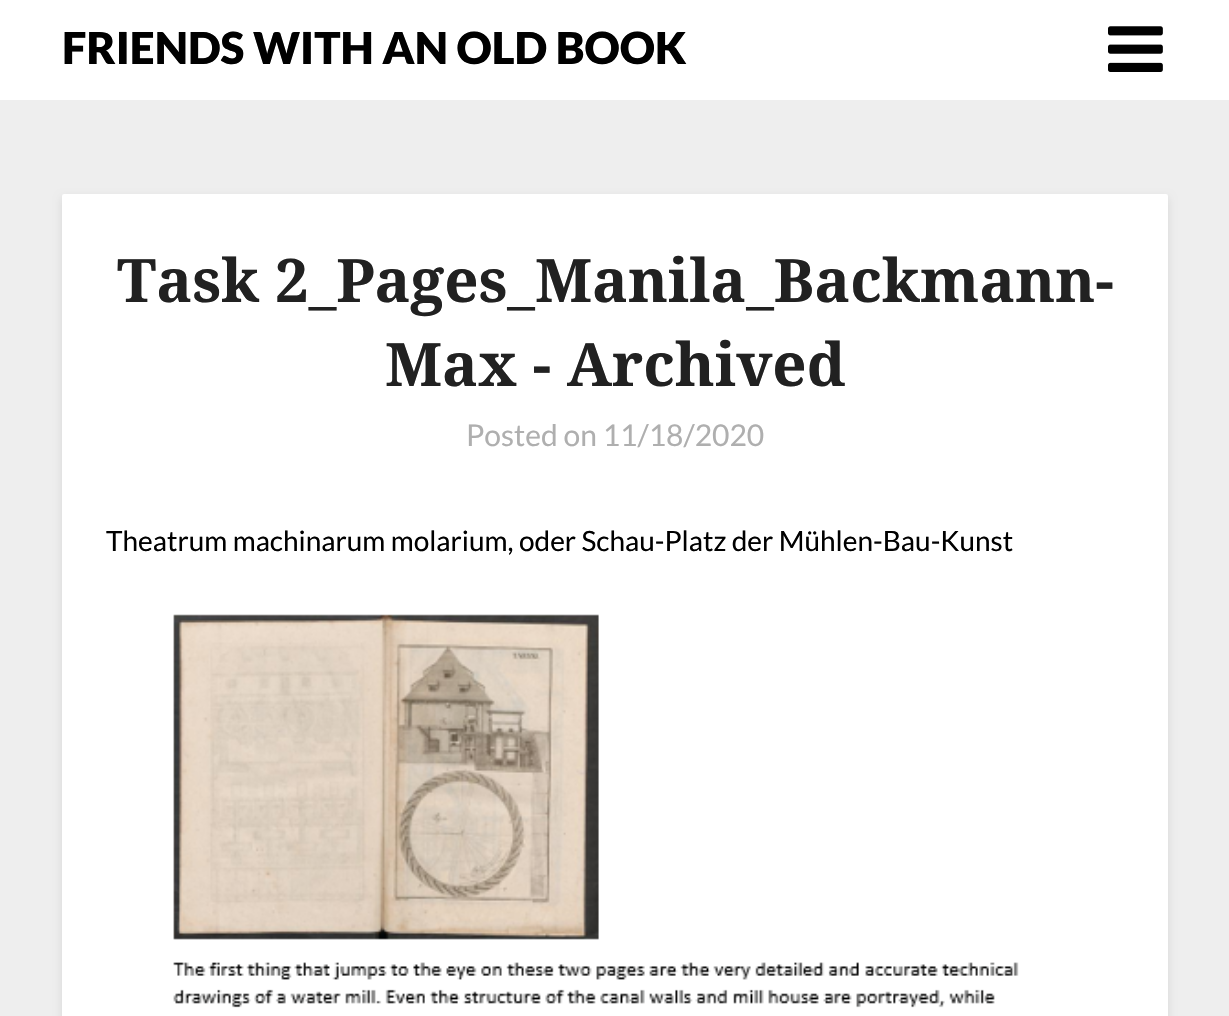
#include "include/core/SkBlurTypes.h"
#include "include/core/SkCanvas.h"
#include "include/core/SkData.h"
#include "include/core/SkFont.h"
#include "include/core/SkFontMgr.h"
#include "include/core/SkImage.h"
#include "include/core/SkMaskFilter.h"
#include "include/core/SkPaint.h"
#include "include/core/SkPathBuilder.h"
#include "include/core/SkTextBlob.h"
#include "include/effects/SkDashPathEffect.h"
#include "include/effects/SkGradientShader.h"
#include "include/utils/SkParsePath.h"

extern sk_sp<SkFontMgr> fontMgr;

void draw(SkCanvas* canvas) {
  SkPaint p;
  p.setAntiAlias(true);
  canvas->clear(SkColorSetRGB(238, 238, 238));
  p.setColor(SK_ColorWHITE);
  canvas->drawRect(SkRect::MakeLTRB(0, 0, 1229, 100), p);
  canvas->drawImageRect(SkImages::DeferredFromEncodedData(SkData::MakeFromFileName("images/1.png")), SkRect::MakeLTRB(1108, 26, 1163, 72), SkSamplingOptions());
  p.setColor(SkColorSetARGB(26, 0, 0, 0));
  p.setMaskFilter(SkMaskFilter::MakeBlur(kNormal_SkBlurStyle, 4));
  canvas->drawRoundRect(SkRect::MakeLTRB(62, 198, 1168, 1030), 2, 2, p);
  p.setMaskFilter(nullptr);
  p.setColor(SK_ColorWHITE);
  canvas->drawRoundRect(SkRect::MakeLTRB(62, 194, 1168, 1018), 2, 2, p);
  canvas->drawImageRect(SkImages::DeferredFromEncodedData(SkData::MakeFromFileName("images/2.png")), SkRect::MakeLTRB(173, 614, 1019, 1008), SkSamplingOptions());
  SkFont font1(fontMgr->matchFamilyStyle("Lato", SkFontStyle(900, SkFontStyle::kNormal_Width, SkFontStyle::kUpright_Slant)), 44);
  font1.setSubpixel(true);
  p.setColor(SK_ColorBLACK);
  canvas->drawString("FRIENDS WITH AN OLD BOOK", 62, 64, font1, p);
  SkFont font2(fontMgr->matchFamilyStyle("Noto Serif", SkFontStyle::Bold()), 60);
  font2.setSubpixel(true);
  p.setColor(SkColorSetRGB(33, 33, 33));
  canvas->drawString("Task 2_Pages_Manila_Backmann-", 117, 302, font2, p);
  canvas->drawString("Max - Archived", 385, 386, font2, p);
  SkFont font3(fontMgr->matchFamilyStyle("Lato", SkFontStyle::Normal()), 30);
  font3.setSubpixel(true);
  p.setColor(SkColorSetRGB(175, 175, 175));
  canvas->drawString("Posted on 11/18/2020", 466, 446, font3, p);
  SkFont font4(fontMgr->matchFamilyStyle("Lato", SkFontStyle::Normal()), 28);
  font4.setSubpixel(true);
  p.setColor(SK_ColorBLACK);
  canvas->drawString("Theatrum machinarum molarium, oder Schau-Platz der Mühlen-Bau-Kunst", 106, 551, font4, p);
}
